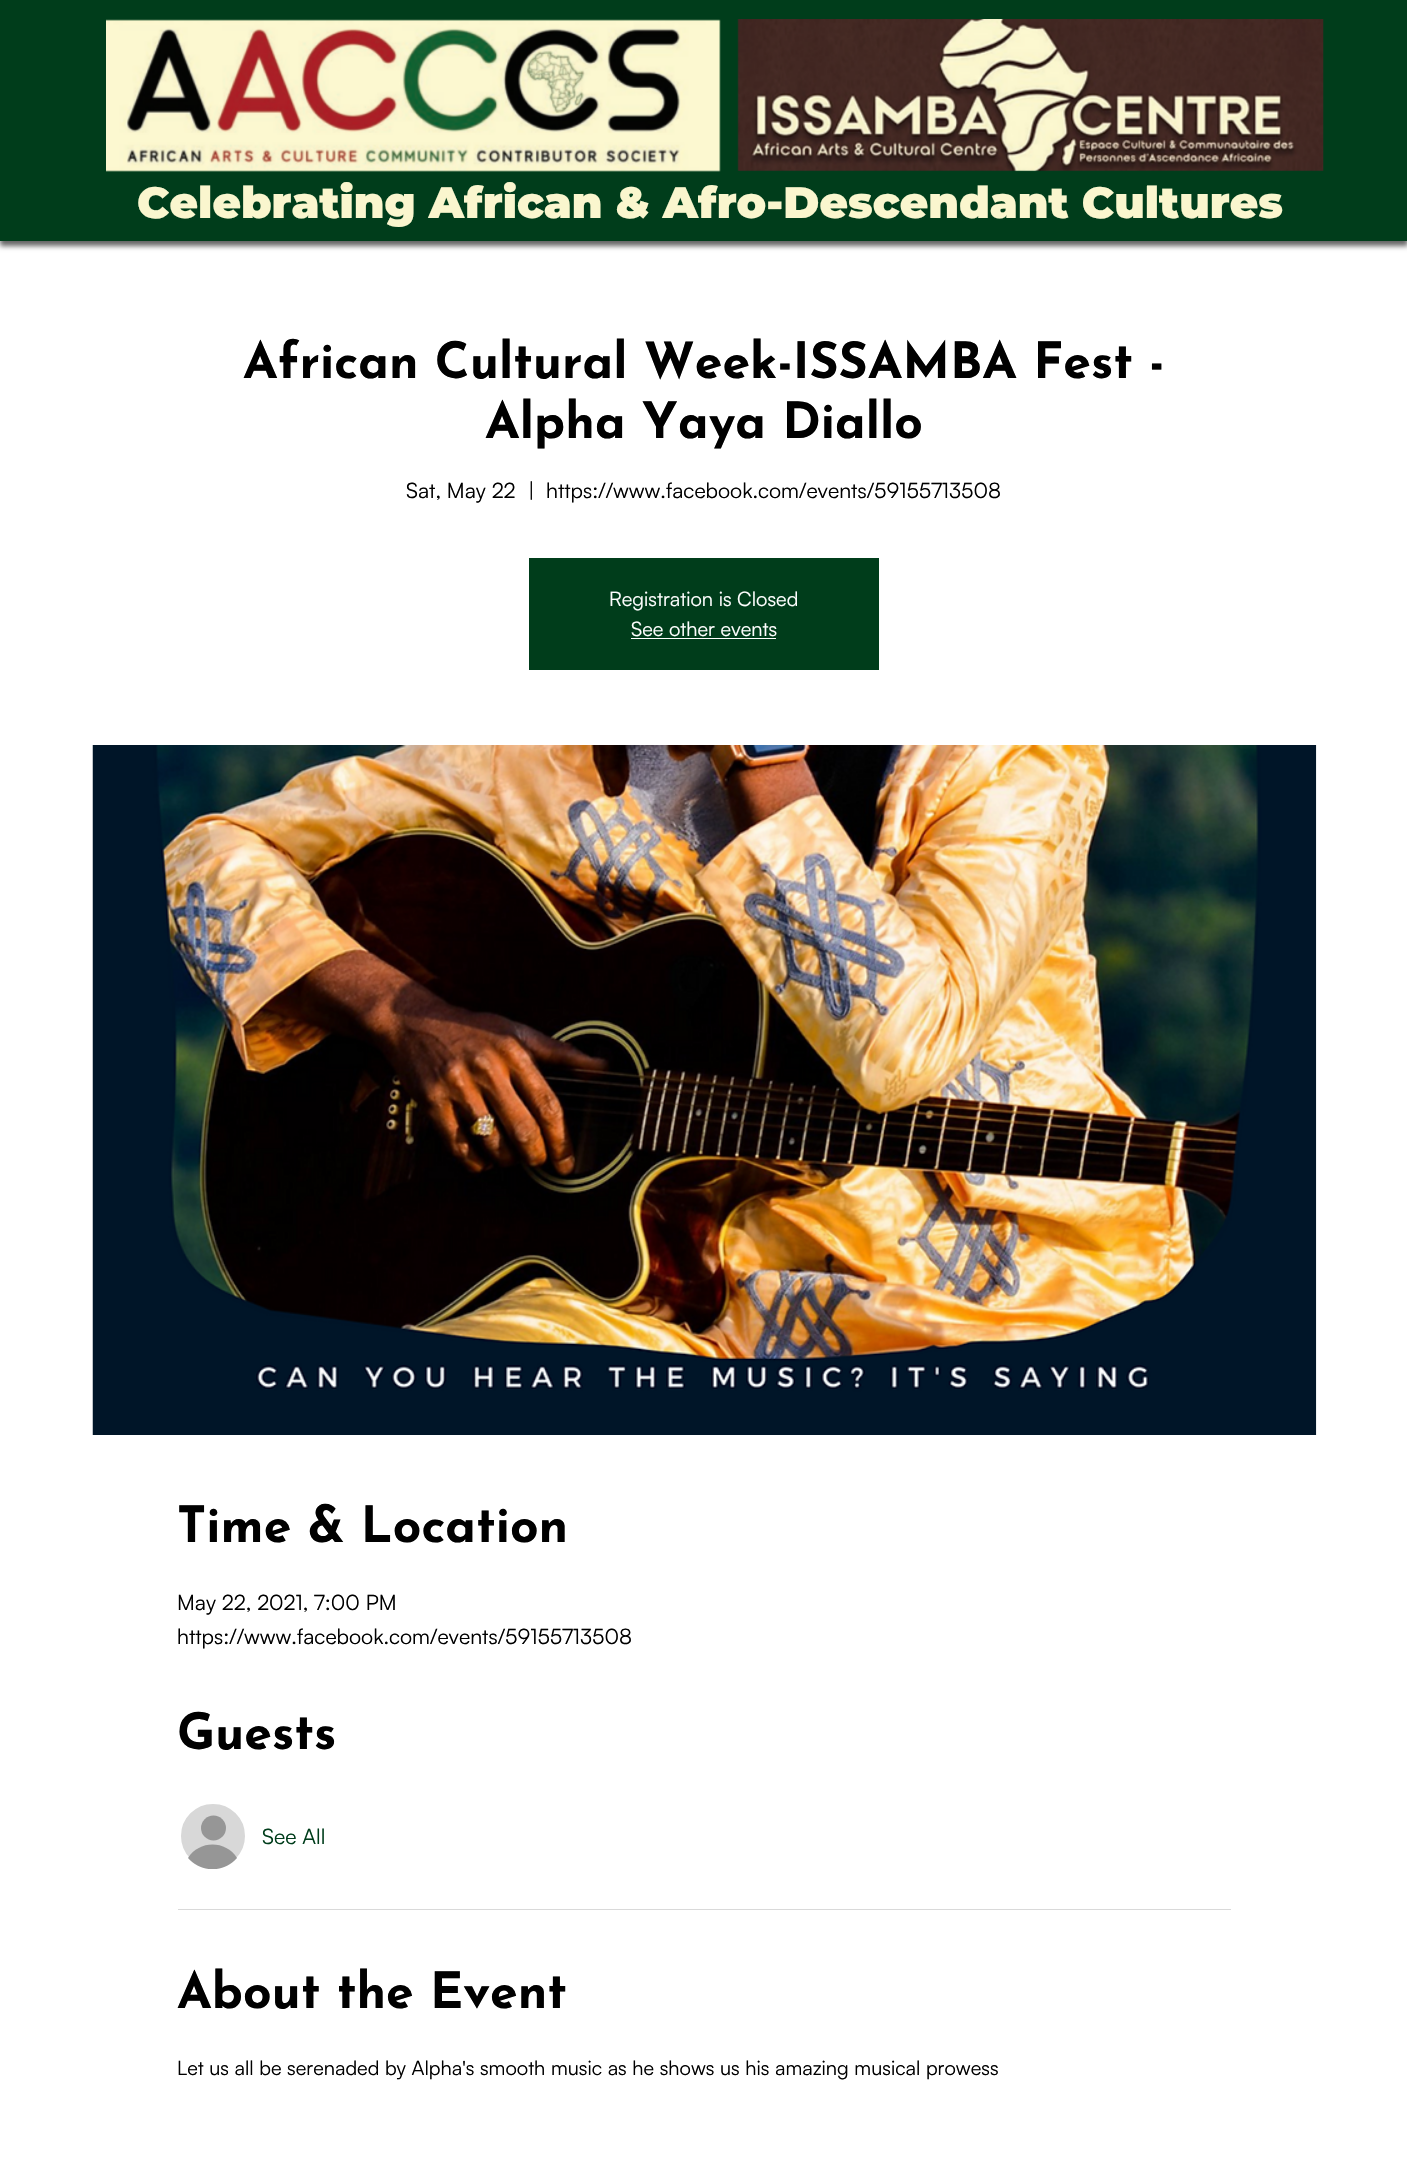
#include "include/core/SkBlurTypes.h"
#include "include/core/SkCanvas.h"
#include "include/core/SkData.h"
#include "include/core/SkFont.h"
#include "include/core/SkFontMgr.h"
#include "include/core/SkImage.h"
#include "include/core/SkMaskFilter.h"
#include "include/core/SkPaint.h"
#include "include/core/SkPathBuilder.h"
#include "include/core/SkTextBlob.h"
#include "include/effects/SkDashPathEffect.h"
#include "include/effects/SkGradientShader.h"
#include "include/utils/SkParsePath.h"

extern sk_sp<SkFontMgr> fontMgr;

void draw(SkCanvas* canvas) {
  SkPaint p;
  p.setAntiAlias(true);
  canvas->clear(SK_ColorWHITE);
  p.setColor(SkColorSetARGB(153, 0, 0, 0));
  p.setMaskFilter(SkMaskFilter::MakeBlur(kNormal_SkBlurStyle, 2.5f));
  canvas->drawRect(SkRect::MakeLTRB(0, 5, 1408, 246), p);
  p.setMaskFilter(nullptr);
  p.setColor(SkColorSetRGB(0, 61, 27));
  canvas->drawRect(SkRect::MakeLTRB(0, 0, 1407, 241), p);
  canvas->drawImageRect(SkImages::DeferredFromEncodedData(SkData::MakeFromFileName("images/1.png")), SkRect::MakeLTRB(106, 19, 721, 172), SkSamplingOptions());
  canvas->drawImageRect(SkImages::DeferredFromEncodedData(SkData::MakeFromFileName("images/2.png")), SkRect::MakeLTRB(737, 19, 1324, 172), SkSamplingOptions());
  canvas->drawRect(SkRect::MakeLTRB(529, 558, 879, 670), p);
  p.setColor(SK_ColorWHITE);
  canvas->drawRect(SkRect::MakeLTRB(631, 638, 776, 639), p);
  canvas->drawImageRect(SkImages::DeferredFromEncodedData(SkData::MakeFromFileName("images/3.png")), SkRect::MakeLTRB(92, 745, 1317, 1435), SkSamplingOptions());
  p.setColor(SkColorSetRGB(216, 216, 216));
  canvas->drawCircle(213, 1836, 33.5f, p);
  p.setStyle(SkPaint::kStroke_Style);
  p.setStrokeWidth(3);
  p.setColor(SK_ColorWHITE);
  canvas->drawCircle(213, 1836, 33.5f, p);
  p.setStyle(SkPaint::kFill_Style);
  p.setColor(SkColorSetRGB(150, 150, 150));
  canvas->drawCircle(213.5f, 1828, 12.5f, p);
  canvas->save();
  canvas->clipRect(SkRect::MakeLTRB(180, 1804, 245, 1869));
  canvas->drawPath(SkPathBuilder().moveTo(237, 1858).cubicTo(224, 1873, 201, 1873, 188, 1858).cubicTo(199, 1840, 226, 1840, 237, 1858).close().detach(), p);
  canvas->restore();
  p.setColor(SkColorSetRGB(217, 217, 217));
  canvas->drawRect(SkRect::MakeLTRB(178, 1909, 1231, 1910), p);
  SkFont font1(fontMgr->matchFamilyStyle("Montserrat", SkFontStyle(100, SkFontStyle::kNormal_Width, SkFontStyle::kUpright_Slant)), 43.75f);
  font1.setSubpixel(true);
  p.setColor(SkColorSetRGB(250, 246, 206));
  canvas->drawString("Celebrating African & Afro-Descendant Cultures", 137, 218, font1, p);
  SkFont font2(fontMgr->matchFamilyStyle("Josefin Sans", SkFontStyle::Bold()), 50);
  font2.setSubpixel(true);
  p.setColor(SK_ColorBLACK);
  canvas->drawString("African Cultural Week-ISSAMBA Fest -", 243, 378, font2, p);
  canvas->drawString("Alpha Yaya Diallo", 485, 438, font2, p);
  SkFont font3(fontMgr->matchFamilyStyle("Satoshi", SkFontStyle::Normal()), 21.25f);
  font3.setSubpixel(true);
  canvas->drawString("Sat, May 22", 406, 498, font3, p);
  canvas->drawString("|", 528, 498, font3, p);
  canvas->drawString("https://www.facebook.com/events/59155713508", 546, 498, font3, p);
  SkFont font4(fontMgr->matchFamilyStyle("Satoshi", SkFontStyle::Normal()), 20);
  font4.setSubpixel(true);
  p.setColor(SK_ColorWHITE);
  canvas->drawString("Registration is Closed", 609, 606, font4, p);
  canvas->drawString("See other events", 631, 636, font4, p);
  p.setColor(SK_ColorBLACK);
  canvas->drawString("Time & Location", 177, 1542, font2, p);
  canvas->drawString("May 22, 2021, 7:00 PM", 177, 1610, font3, p);
  canvas->drawString("https://www.facebook.com/events/59155713508", 177, 1644, font3, p);
  canvas->drawString("Guests", 177, 1749, font2, p);
  p.setColor(SkColorSetRGB(0, 61, 27));
  canvas->drawString("See All", 262, 1844, font3, p);
  p.setColor(SK_ColorBLACK);
  canvas->drawString("About the Event", 177, 2008, font2, p);
  canvas->drawString("Let us all be serenaded by Alpha's smooth music as he shows us his amazing musical prowess", 177, 2075, font4, p);
}
